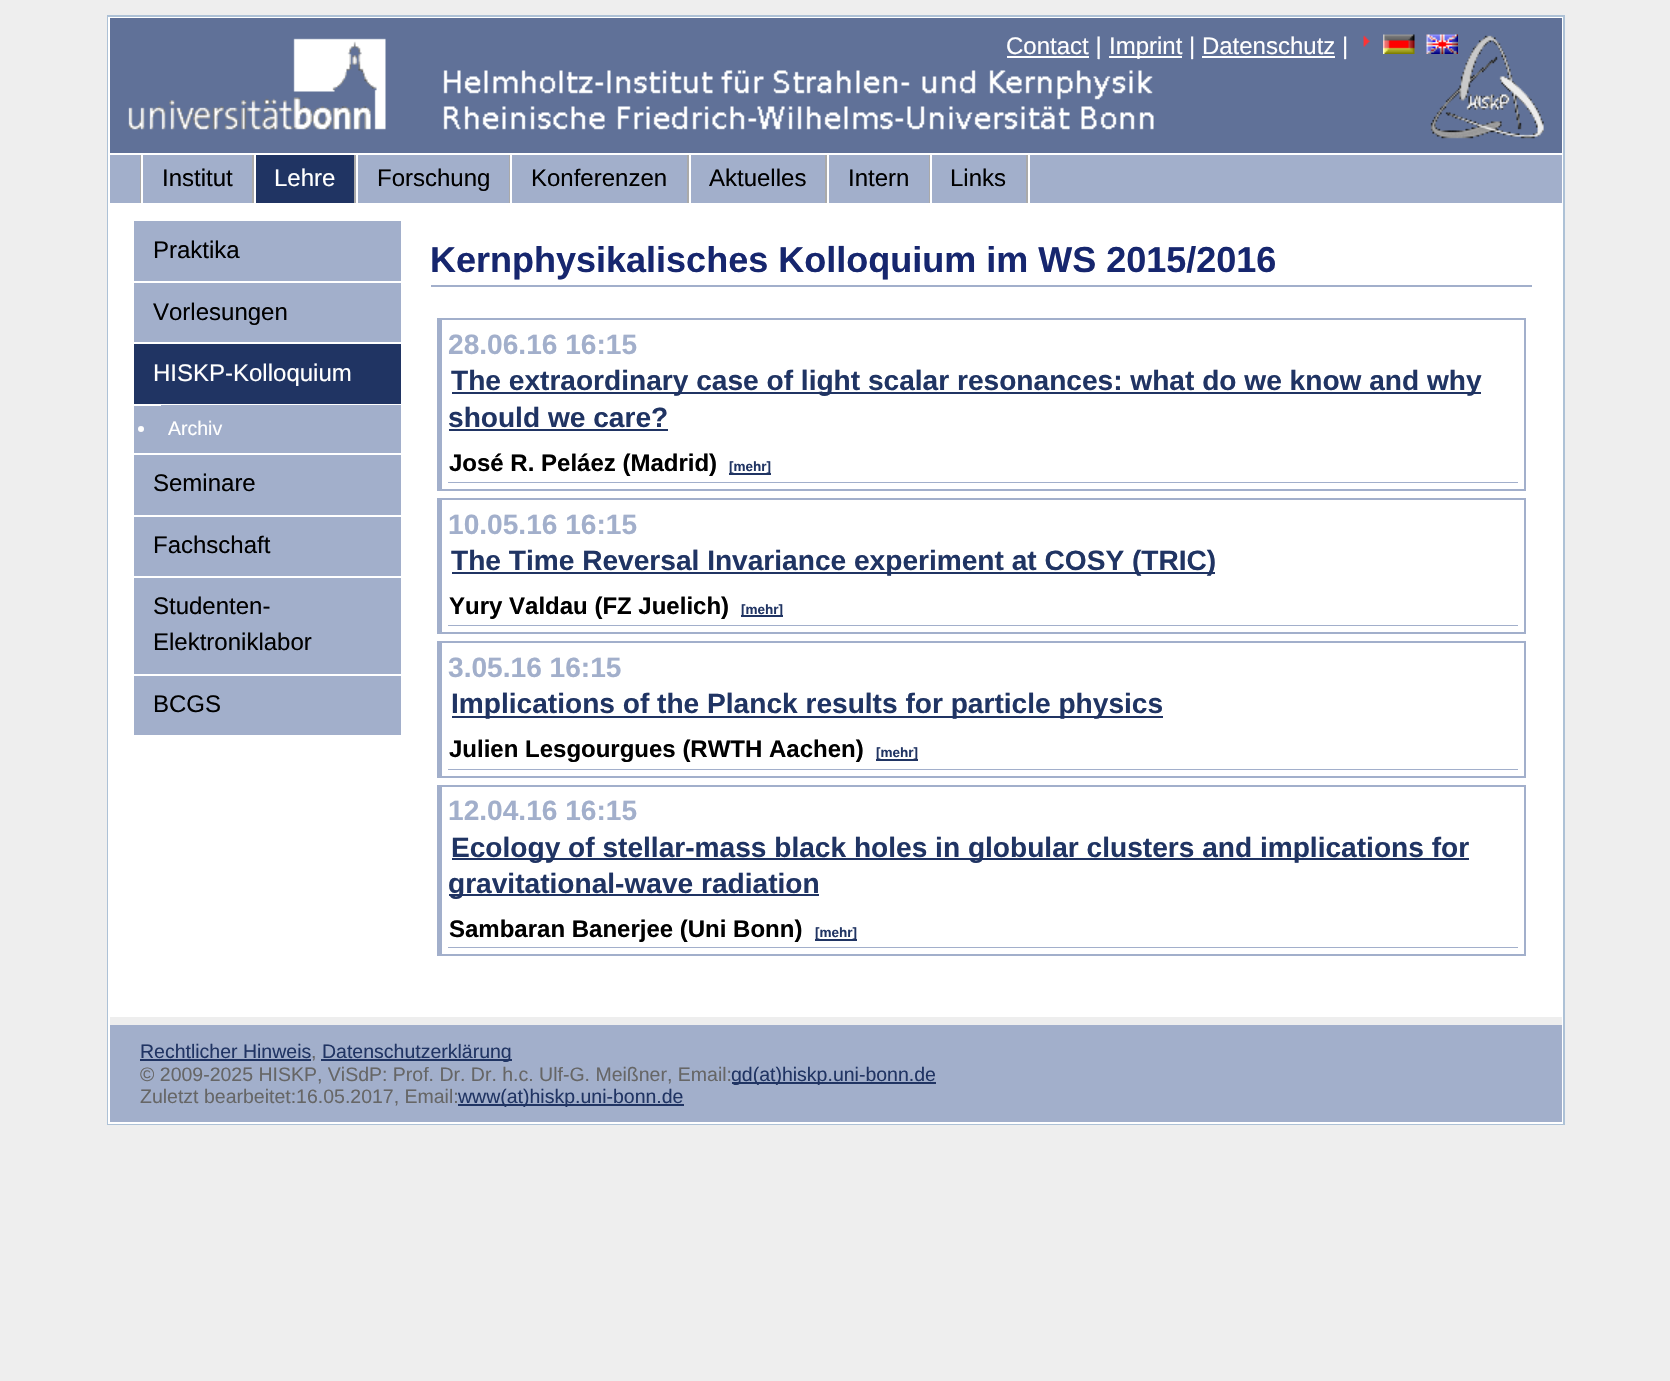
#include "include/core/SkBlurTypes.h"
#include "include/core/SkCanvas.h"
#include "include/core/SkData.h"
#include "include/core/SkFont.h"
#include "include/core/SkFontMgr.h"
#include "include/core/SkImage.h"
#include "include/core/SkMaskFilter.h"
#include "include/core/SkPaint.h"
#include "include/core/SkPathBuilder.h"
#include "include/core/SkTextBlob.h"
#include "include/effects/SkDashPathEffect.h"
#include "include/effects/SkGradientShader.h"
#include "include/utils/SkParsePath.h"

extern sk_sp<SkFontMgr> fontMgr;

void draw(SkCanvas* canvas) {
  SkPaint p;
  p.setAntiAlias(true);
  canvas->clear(SkColorSetRGB(238, 238, 238));
  p.setColor(SK_ColorWHITE);
  canvas->drawRect(SkRect::MakeLTRB(110, 204, 1561, 1017), p);
  p.setStyle(SkPaint::kStroke_Style);
  p.setStrokeWidth(2);
  p.setColor(SkColorSetRGB(173, 193, 214));
  canvas->drawRect(SkRect::MakeLTRB(108, 16, 1564, 1124), p);
  p.setColor(SK_ColorWHITE);
  canvas->drawRect(SkRect::MakeLTRB(109, 18, 1562, 1123), p);
  p.setStyle(SkPaint::kFill_Style);
  p.setColor(SkColorSetRGB(96, 113, 152));
  canvas->drawRect(SkRect::MakeLTRB(110, 18, 1562, 153), p);
  canvas->drawImageRect(SkImages::DeferredFromEncodedData(SkData::MakeFromFileName("images/1.png")), SkRect::MakeLTRB(443, 35, 1544, 139), SkSamplingOptions());
  canvas->drawImageRect(SkImages::DeferredFromEncodedData(SkData::MakeFromFileName("images/2.png")), SkRect::MakeLTRB(128, 38, 386, 130), SkSamplingOptions());
  p.setColor(SK_ColorWHITE);
  canvas->drawRect(SkRect::MakeLTRB(1007, 56, 1089, 58), p);
  canvas->drawRect(SkRect::MakeLTRB(1109, 56, 1182, 58), p);
  canvas->drawImageRect(SkImages::DeferredFromEncodedData(SkData::MakeFromFileName("images/3.png")), SkRect::MakeLTRB(1363, 35, 1370, 47), SkSamplingOptions());
  canvas->drawImageRect(SkImages::DeferredFromEncodedData(SkData::MakeFromFileName("images/4.png")), SkRect::MakeLTRB(1383, 34, 1415, 54), SkSamplingOptions());
  canvas->drawImageRect(SkImages::DeferredFromEncodedData(SkData::MakeFromFileName("images/5.png")), SkRect::MakeLTRB(1426, 34, 1458, 54), SkSamplingOptions());
  canvas->drawRect(SkRect::MakeLTRB(1202, 56, 1335, 58), p);
  p.setColor(SkColorSetRGB(162, 175, 203));
  canvas->drawRect(SkRect::MakeLTRB(110, 155, 1562, 203), p);
  p.setColor(SK_ColorWHITE);
  canvas->drawRect(SkRect::MakeLTRB(110, 153, 1562, 155), p);
  canvas->drawRect(SkRect::MakeLTRB(110, 203, 1562, 204), p);
  canvas->drawRect(SkRect::MakeLTRB(1028, 155, 1030, 203), p);
  p.setColor(SkColorSetRGB(170, 170, 170));
  canvas->drawRect(SkRect::MakeLTRB(140, 155, 141, 203), p);
  canvas->drawRect(SkRect::MakeLTRB(252, 155, 254, 203), p);
  p.setColor(SK_ColorWHITE);
  canvas->drawRect(SkRect::MakeLTRB(141, 155, 143, 203), p);
  p.setColor(SkColorSetRGB(32, 52, 99));
  canvas->drawRect(SkRect::MakeLTRB(256, 155, 354, 203), p);
  p.setColor(SkColorSetRGB(170, 170, 170));
  canvas->drawRect(SkRect::MakeLTRB(354, 155, 356, 203), p);
  p.setColor(SK_ColorWHITE);
  canvas->drawRect(SkRect::MakeLTRB(254, 155, 256, 203), p);
  p.setColor(SkColorSetRGB(170, 170, 170));
  canvas->drawRect(SkRect::MakeLTRB(509, 155, 510, 203), p);
  p.setColor(SK_ColorWHITE);
  canvas->drawRect(SkRect::MakeLTRB(356, 155, 358, 203), p);
  p.setColor(SkColorSetRGB(170, 170, 170));
  canvas->drawRect(SkRect::MakeLTRB(687, 155, 689, 203), p);
  p.setColor(SK_ColorWHITE);
  canvas->drawRect(SkRect::MakeLTRB(510, 155, 512, 203), p);
  p.setColor(SkColorSetRGB(170, 170, 170));
  canvas->drawRect(SkRect::MakeLTRB(825, 155, 827, 203), p);
  p.setColor(SK_ColorWHITE);
  canvas->drawRect(SkRect::MakeLTRB(689, 155, 691, 203), p);
  p.setColor(SkColorSetRGB(170, 170, 170));
  canvas->drawRect(SkRect::MakeLTRB(929, 155, 930, 203), p);
  p.setColor(SK_ColorWHITE);
  canvas->drawRect(SkRect::MakeLTRB(827, 155, 829, 203), p);
  p.setColor(SkColorSetRGB(170, 170, 170));
  canvas->drawRect(SkRect::MakeLTRB(1026, 155, 1028, 203), p);
  p.setColor(SK_ColorWHITE);
  canvas->drawRect(SkRect::MakeLTRB(930, 155, 932, 203), p);
  p.setColor(SkColorSetRGB(162, 175, 203));
  canvas->drawRect(SkRect::MakeLTRB(134, 221, 401, 281), p);
  canvas->drawRect(SkRect::MakeLTRB(134, 283, 401, 342), p);
  p.setColor(SkColorSetRGB(32, 52, 99));
  canvas->drawRect(SkRect::MakeLTRB(134, 344, 401, 404), p);
  p.setColor(SkColorSetRGB(162, 175, 203));
  canvas->drawRect(SkRect::MakeLTRB(134, 406, 161, 453), p);
  canvas->drawRect(SkRect::MakeLTRB(161, 405, 401, 453), p);
  p.setColor(SK_ColorWHITE);
  canvas->drawCircle(141, 429, 3, p);
  p.setColor(SkColorSetRGB(162, 175, 203));
  canvas->drawRect(SkRect::MakeLTRB(134, 455, 401, 515), p);
  canvas->drawRect(SkRect::MakeLTRB(134, 517, 401, 576), p);
  canvas->drawRect(SkRect::MakeLTRB(134, 578, 401, 674), p);
  canvas->drawRect(SkRect::MakeLTRB(134, 676, 401, 735), p);
  canvas->drawRect(SkRect::MakeLTRB(431, 285, 1532, 287), p);
  canvas->drawRect(SkRect::MakeLTRB(437, 318, 1526, 320), p);
  canvas->drawRect(SkRect::MakeLTRB(1524, 318, 1526, 491), p);
  canvas->drawRect(SkRect::MakeLTRB(437, 489, 1526, 491), p);
  canvas->drawRect(SkRect::MakeLTRB(437, 318, 442, 491), p);
  p.setColor(SkColorSetRGB(32, 52, 99));
  canvas->drawRect(SkRect::MakeLTRB(452, 392, 1481, 394), p);
  canvas->drawRect(SkRect::MakeLTRB(449, 429, 668, 431), p);
  canvas->drawRect(SkRect::MakeLTRB(729, 473, 771, 475), p);
  p.setColor(SkColorSetRGB(162, 175, 203));
  canvas->drawRect(SkRect::MakeLTRB(447, 481, 1519, 484), p);
  p.setStyle(SkPaint::kStroke_Style);
  p.setColor(SK_ColorWHITE);
  canvas->drawRect(SkRect::MakeLTRB(447, 481, 1519, 484), p);
  p.setStyle(SkPaint::kFill_Style);
  p.setColor(SkColorSetRGB(162, 175, 203));
  canvas->drawRect(SkRect::MakeLTRB(437, 498, 1526, 500), p);
  canvas->drawRect(SkRect::MakeLTRB(1524, 498, 1526, 633), p);
  canvas->drawRect(SkRect::MakeLTRB(437, 632, 1526, 634), p);
  canvas->drawRect(SkRect::MakeLTRB(437, 498, 442, 633), p);
  p.setColor(SkColorSetRGB(32, 52, 99));
  canvas->drawRect(SkRect::MakeLTRB(452, 572, 1215, 574), p);
  canvas->drawRect(SkRect::MakeLTRB(741, 615, 783, 617), p);
  p.setColor(SkColorSetRGB(162, 175, 203));
  canvas->drawRect(SkRect::MakeLTRB(447, 624, 1519, 627), p);
  p.setStyle(SkPaint::kStroke_Style);
  p.setColor(SK_ColorWHITE);
  canvas->drawRect(SkRect::MakeLTRB(447, 624, 1519, 627), p);
  p.setStyle(SkPaint::kFill_Style);
  p.setColor(SkColorSetRGB(162, 175, 203));
  canvas->drawRect(SkRect::MakeLTRB(437, 641, 1526, 643), p);
  canvas->drawRect(SkRect::MakeLTRB(1524, 641, 1526, 777), p);
  canvas->drawRect(SkRect::MakeLTRB(437, 776, 1526, 778), p);
  canvas->drawRect(SkRect::MakeLTRB(437, 641, 442, 777), p);
  p.setColor(SkColorSetRGB(32, 52, 99));
  canvas->drawRect(SkRect::MakeLTRB(452, 716, 1163, 718), p);
  canvas->drawRect(SkRect::MakeLTRB(876, 759, 918, 761), p);
  p.setColor(SkColorSetRGB(162, 175, 203));
  canvas->drawRect(SkRect::MakeLTRB(447, 768, 1519, 771), p);
  p.setStyle(SkPaint::kStroke_Style);
  p.setColor(SK_ColorWHITE);
  canvas->drawRect(SkRect::MakeLTRB(447, 768, 1519, 771), p);
  p.setStyle(SkPaint::kFill_Style);
  p.setColor(SkColorSetRGB(162, 175, 203));
  canvas->drawRect(SkRect::MakeLTRB(437, 785, 1526, 787), p);
  canvas->drawRect(SkRect::MakeLTRB(1524, 785, 1526, 956), p);
  canvas->drawRect(SkRect::MakeLTRB(437, 954, 1526, 956), p);
  canvas->drawRect(SkRect::MakeLTRB(437, 785, 442, 956), p);
  p.setColor(SkColorSetRGB(32, 52, 99));
  canvas->drawRect(SkRect::MakeLTRB(452, 858, 1469, 860), p);
  canvas->drawRect(SkRect::MakeLTRB(449, 894, 819, 896), p);
  canvas->drawRect(SkRect::MakeLTRB(815, 939, 857, 941), p);
  p.setColor(SkColorSetRGB(162, 175, 203));
  canvas->drawRect(SkRect::MakeLTRB(447, 946, 1519, 949), p);
  p.setStyle(SkPaint::kStroke_Style);
  p.setColor(SK_ColorWHITE);
  canvas->drawRect(SkRect::MakeLTRB(447, 946, 1519, 949), p);
  p.setStyle(SkPaint::kFill_Style);
  p.setColor(SkColorSetRGB(162, 175, 203));
  canvas->drawRect(SkRect::MakeLTRB(110, 1025, 1562, 1122), p);
  p.setColor(SkColorSetRGB(239, 239, 239));
  canvas->drawRect(SkRect::MakeLTRB(1561, 1017, 1562, 1025), p);
  p.setColor(SkColorSetRGB(32, 52, 99));
  canvas->drawRect(SkRect::MakeLTRB(140, 1059, 311, 1061), p);
  canvas->drawRect(SkRect::MakeLTRB(321, 1059, 512, 1061), p);
  canvas->drawRect(SkRect::MakeLTRB(732, 1082, 936, 1084), p);
  canvas->drawRect(SkRect::MakeLTRB(458, 1104, 684, 1106), p);
  SkFont font1(fontMgr->matchFamilyStyle("Liberation Sans", SkFontStyle::Normal()), 24);
  font1.setSubpixel(true);
  p.setColor(SK_ColorWHITE);
  canvas->drawString("Contact |", 1006, 54, font1, p);
  canvas->drawString("Imprint | Datenschutz |", 1109, 54, font1, p);
  p.setColor(SK_ColorBLACK);
  canvas->drawString("Institut", 162, 186, font1, p);
  p.setColor(SK_ColorWHITE);
  canvas->drawString("Lehre", 274, 186, font1, p);
  p.setColor(SK_ColorBLACK);
  canvas->drawString("Forschung", 377, 186, font1, p);
  canvas->drawString("Konferenzen", 531, 186, font1, p);
  canvas->drawString("Aktuelles", 709, 186, font1, p);
  canvas->drawString("Intern", 848, 186, font1, p);
  canvas->drawString("Links", 950, 186, font1, p);
  canvas->drawString("Praktika", 153, 258, font1, p);
  canvas->drawString("Vorlesungen", 153, 320, font1, p);
  p.setColor(SK_ColorWHITE);
  canvas->drawString("HISKP-Kolloquium", 153, 381, font1, p);
  SkFont font2(fontMgr->matchFamilyStyle("Liberation Sans", SkFontStyle::Normal()), 19.5f);
  font2.setSubpixel(true);
  canvas->drawString("Archiv", 168, 435, font2, p);
  p.setColor(SK_ColorBLACK);
  canvas->drawString("Seminare", 153, 491, font1, p);
  canvas->drawString("Fachschaft", 153, 553, font1, p);
  canvas->drawString("Studenten-", 153, 614, font1, p);
  canvas->drawString("Elektroniklabor", 153, 650, font1, p);
  canvas->drawString("BCGS", 153, 712, font1, p);
  SkFont font3(fontMgr->matchFamilyStyle("Liberation Sans", SkFontStyle::Bold()), 36);
  font3.setSubpixel(true);
  p.setColor(SkColorSetRGB(22, 38, 110));
  canvas->drawString("Kernphysikalisches Kolloquium im WS 2015/2016", 430, 272, font3, p);
  SkFont font4(fontMgr->matchFamilyStyle("Liberation Sans", SkFontStyle::Bold()), 28.1f);
  font4.setSubpixel(true);
  p.setColor(SkColorSetRGB(162, 175, 203));
  canvas->drawString("28.06.16 16:15", 448, 354, font4, p);
  p.setColor(SkColorSetRGB(32, 52, 99));
  canvas->drawString("The extraordinary case of light scalar resonances: what do we know and why", 451, 390, font4, p);
  canvas->drawString("should we care?", 448, 427, font4, p);
  SkFont font5(fontMgr->matchFamilyStyle("Liberation Sans", SkFontStyle::Bold()), 24);
  font5.setSubpixel(true);
  p.setColor(SK_ColorBLACK);
  canvas->drawString("José R. Peláez (Madrid)", 449, 471, font5, p);
  SkFont font6(fontMgr->matchFamilyStyle("Liberation Sans", SkFontStyle::Bold()), 13.5f);
  font6.setSubpixel(true);
  p.setColor(SkColorSetRGB(32, 52, 99));
  canvas->drawString("[mehr]", 729, 471, font6, p);
  p.setColor(SkColorSetRGB(162, 175, 203));
  canvas->drawString("10.05.16 16:15", 448, 534, font4, p);
  p.setColor(SkColorSetRGB(32, 52, 99));
  canvas->drawString("The Time Reversal Invariance experiment at COSY (TRIC)", 451, 570, font4, p);
  p.setColor(SK_ColorBLACK);
  canvas->drawString("Yury Valdau (FZ Juelich)", 449, 614, font5, p);
  p.setColor(SkColorSetRGB(32, 52, 99));
  canvas->drawString("[mehr]", 741, 614, font6, p);
  p.setColor(SkColorSetRGB(162, 175, 203));
  canvas->drawString("3.05.16 16:15", 448, 677, font4, p);
  p.setColor(SkColorSetRGB(32, 52, 99));
  canvas->drawString("Implications of the Planck results for particle physics", 451, 713, font4, p);
  p.setColor(SK_ColorBLACK);
  canvas->drawString("Julien Lesgourgues (RWTH Aachen)", 449, 757, font5, p);
  p.setColor(SkColorSetRGB(32, 52, 99));
  canvas->drawString("[mehr]", 876, 757, font6, p);
  p.setColor(SkColorSetRGB(162, 175, 203));
  canvas->drawString("12.04.16 16:15", 448, 820, font4, p);
  p.setColor(SkColorSetRGB(32, 52, 99));
  canvas->drawString("Ecology of stellar-mass black holes in globular clusters and implications for", 451, 857, font4, p);
  canvas->drawString("gravitational-wave radiation", 448, 893, font4, p);
  p.setColor(SK_ColorBLACK);
  canvas->drawString("Sambaran Banerjee (Uni Bonn)", 449, 937, font5, p);
  p.setColor(SkColorSetRGB(32, 52, 99));
  canvas->drawString("[mehr]", 815, 937, font6, p);
  canvas->drawString("Rechtlicher Hinweis", 140, 1058, font2, p);
  p.setColor(SkColorSetRGB(102, 102, 102));
  canvas->drawString(",", 311, 1058, font2, p);
  p.setColor(SkColorSetRGB(32, 52, 99));
  canvas->drawString("Datenschutzerklärung", 322, 1058, font2, p);
  p.setColor(SkColorSetRGB(102, 102, 102));
  canvas->drawString("© 2009-2025 HISKP, ViSdP: Prof. Dr. Dr. h.c. Ulf-G. Meißner, Email:", 140, 1081, font2, p);
  p.setColor(SkColorSetRGB(32, 52, 99));
  canvas->drawString("gd(at)hiskp.uni-bonn.de", 731, 1081, font2, p);
  p.setColor(SkColorSetRGB(102, 102, 102));
  canvas->drawString("Zuletzt bearbeitet:16.05.2017, Email:", 140, 1103, font2, p);
  p.setColor(SkColorSetRGB(32, 52, 99));
  canvas->drawString("www(at)hiskp.uni-bonn.de", 458, 1103, font2, p);
}
